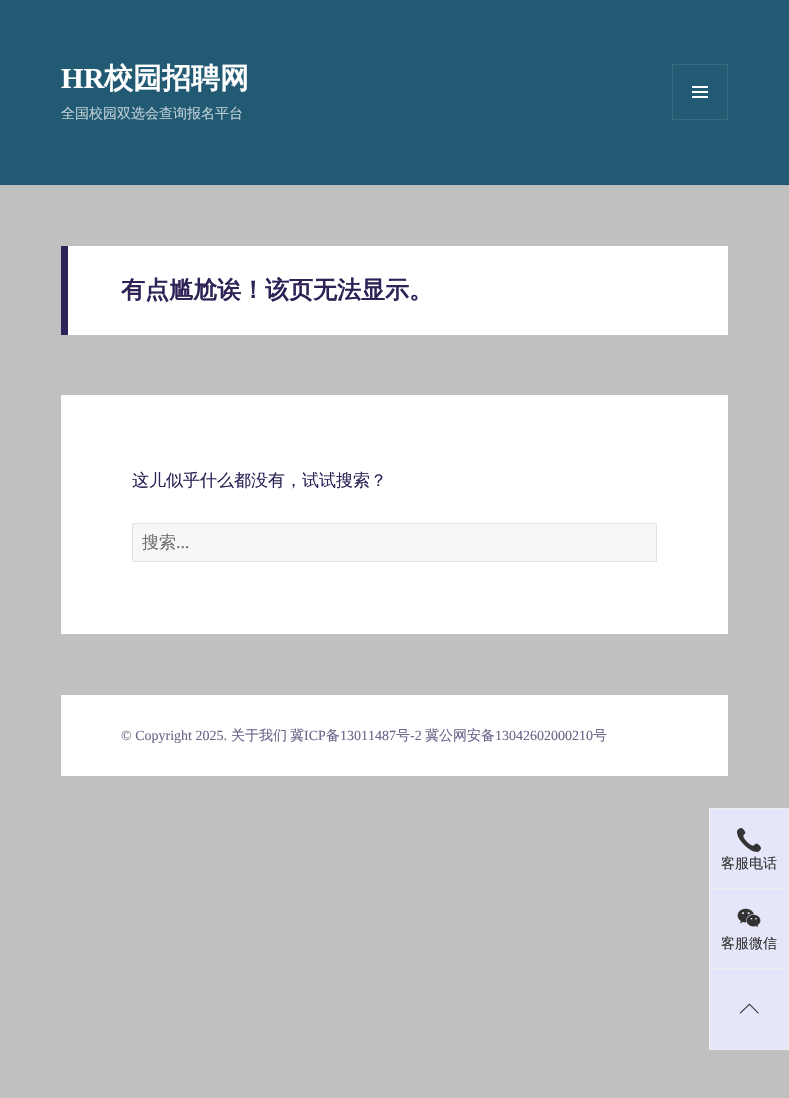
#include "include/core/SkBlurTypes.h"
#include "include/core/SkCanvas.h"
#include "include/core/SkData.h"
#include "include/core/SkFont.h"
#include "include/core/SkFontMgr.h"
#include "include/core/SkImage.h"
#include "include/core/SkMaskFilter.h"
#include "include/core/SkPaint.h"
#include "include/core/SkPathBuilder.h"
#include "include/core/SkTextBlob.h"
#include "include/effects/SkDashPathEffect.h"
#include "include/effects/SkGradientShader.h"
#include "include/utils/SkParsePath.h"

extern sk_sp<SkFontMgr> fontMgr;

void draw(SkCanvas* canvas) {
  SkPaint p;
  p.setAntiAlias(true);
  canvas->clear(SkColorSetRGB(192, 192, 192));
  p.setColor(SkColorSetRGB(33, 90, 114));
  canvas->drawRect(SkRect::MakeLTRB(0, 0, 789, 184), p);
  p.setColor(SkColorSetRGB(34, 84, 111));
  canvas->drawRect(SkRect::MakeLTRB(0, 184, 789, 185), p);
  p.setStyle(SkPaint::kStroke_Style);
  p.setStrokeWidth(1);
  p.setColor(SkColorSetRGB(55, 107, 128));
  canvas->drawRect(SkRect::MakeLTRB(672.5f, 64.5f, 727.5f, 119.5f), p);
  canvas->drawImageRect(SkImages::DeferredFromEncodedData(SkData::MakeFromFileName("images/1.png")), SkRect::MakeLTRB(692, 86, 708, 98), SkSamplingOptions());
  p.setStyle(SkPaint::kFill_Style);
  p.setColor(SK_ColorWHITE);
  canvas->drawRect(SkRect::MakeLTRB(68, 246, 728, 335), p);
  p.setColor(SkColorSetRGB(46, 34, 86));
  canvas->drawRect(SkRect::MakeLTRB(61, 246, 68, 335), p);
  p.setColor(SK_ColorWHITE);
  canvas->drawRect(SkRect::MakeLTRB(61, 395, 728, 634), p);
  p.setColor(SkColorSetRGB(247, 247, 247));
  canvas->drawRect(SkRect::MakeLTRB(132.5f, 523.5f, 656.5f, 561.5f), p);
  p.setStyle(SkPaint::kStroke_Style);
  p.setColor(SkColorSetRGB(227, 226, 231));
  canvas->drawRect(SkRect::MakeLTRB(132.5f, 523.5f, 656.5f, 561.5f), p);
  p.setStyle(SkPaint::kFill_Style);
  p.setColor(SkColorSetRGB(230, 230, 250));
  canvas->drawRect(SkRect::MakeLTRB(710, 809, 788, 888), p);
  p.setStyle(SkPaint::kStroke_Style);
  p.setColor(SkColorSetRGB(238, 238, 238));
  canvas->drawRect(SkRect::MakeLTRB(709.5f, 808.5f, 788.5f, 889.5f), p);
  canvas->drawImageRect(SkImages::DeferredFromEncodedData(SkData::MakeFromFileName("images/2.png")), SkRect::MakeLTRB(737, 828, 761, 852), SkSamplingOptions());
  p.setStyle(SkPaint::kFill_Style);
  p.setColor(SkColorSetRGB(230, 230, 250));
  canvas->drawRect(SkRect::MakeLTRB(710, 889, 788, 968), p);
  p.setStyle(SkPaint::kStroke_Style);
  p.setColor(SkColorSetRGB(238, 238, 238));
  canvas->drawRect(SkRect::MakeLTRB(709.5f, 888.5f, 788.5f, 969.5f), p);
  canvas->drawImageRect(SkImages::DeferredFromEncodedData(SkData::MakeFromFileName("images/3.png")), SkRect::MakeLTRB(737, 908, 761, 928), SkSamplingOptions());
  p.setStyle(SkPaint::kFill_Style);
  p.setColor(SkColorSetRGB(230, 230, 250));
  canvas->drawRect(SkRect::MakeLTRB(709.5f, 968.5f, 788.5f, 1049.5f), p);
  p.setStyle(SkPaint::kStroke_Style);
  p.setColor(SkColorSetRGB(238, 238, 238));
  canvas->drawRect(SkRect::MakeLTRB(709.5f, 968.5f, 788.5f, 1049.5f), p);
  p.setStyle(SkPaint::kFill_Style);
  p.setColor(SkColorSetRGB(51, 51, 51));
  canvas->drawPath(SkPathBuilder().moveTo(759, 1013).lineTo(749.5f, 1003.5f).lineTo(739.5f, 1013).lineTo(740.5f, 1013.5f).lineTo(749.5f, 1005).lineTo(758, 1013.5f).close().detach(), p);
  p.setColor(SK_ColorWHITE);
  canvas->drawRect(SkRect::MakeLTRB(61, 695, 728, 776), p);
  SkFont font1(fontMgr->matchFamilyStyle("Liberation Serif", SkFontStyle::Bold()), 29);
  font1.setSubpixel(true);
  canvas->drawString("HR", 61, 88, font1, p);
  SkFont font2(fontMgr->matchFamilyStyle("WenQuanYi Zen Hei", SkFontStyle::Bold()), 29);
  font2.setSubpixel(true);
  canvas->drawString("校园招聘网", 104, 88, font2, p);
  SkFont font3(fontMgr->matchFamilyStyle("WenQuanYi Zen Hei", SkFontStyle(500, SkFontStyle::kNormal_Width, SkFontStyle::kUpright_Slant)), 14);
  font3.setSubpixel(true);
  p.setColor(SkColorSetRGB(188, 206, 213));
  canvas->drawString("全国校园双选会查询报名平台", 61, 118, font3, p);
  SkFont font4(fontMgr->matchFamilyStyle("WenQuanYi Zen Hei", SkFontStyle::Bold()), 24);
  font4.setSubpixel(true);
  p.setColor(SkColorSetRGB(46, 34, 86));
  canvas->drawString("有点尴尬诶！该页无法显示。", 121, 298, font4, p);
  SkFont font5(fontMgr->matchFamilyStyle("WenQuanYi Zen Hei", SkFontStyle(500, SkFontStyle::kNormal_Width, SkFontStyle::kUpright_Slant)), 17);
  font5.setSubpixel(true);
  canvas->drawString("这儿似乎什么都没有，试试搜索？", 132, 486, font5, p);
  p.setColor(SkColorSetRGB(110, 110, 110));
  canvas->drawString("搜索", 142, 548, font5, p);
  SkFont font6(fontMgr->matchFamilyStyle("Noto Sans", SkFontStyle::Normal()), 17);
  font6.setSubpixel(true);
  canvas->drawString("…", 176, 548, font6, p);
  p.setColor(SkColorSetRGB(51, 51, 51));
  canvas->drawString("客服电话", 721, 868, font3, p);
  canvas->drawString("客服微信", 721, 948, font3, p);
  SkFont font7(fontMgr->matchFamilyStyle("Liberation Serif", SkFontStyle::Normal()), 14);
  font7.setSubpixel(true);
  p.setColor(SkColorSetRGB(109, 100, 137));
  canvas->drawString("© Copyright 2025.", 121, 740, font7, p);
  canvas->drawString("关于我们", 231, 740, font3, p);
  canvas->drawString("冀", 290, 740, font3, p);
  canvas->drawString("ICP", 304, 740, font7, p);
  canvas->drawString("备", 326, 740, font3, p);
  canvas->drawString("13011487", 340, 740, font7, p);
  canvas->drawString("号", 396, 740, font3, p);
  canvas->drawString("-2", 410, 740, font7, p);
  canvas->drawString("冀公网安备", 425, 740, font3, p);
  canvas->drawString("13042602000210", 495, 740, font7, p);
  canvas->drawString("号", 593, 740, font3, p);
}
